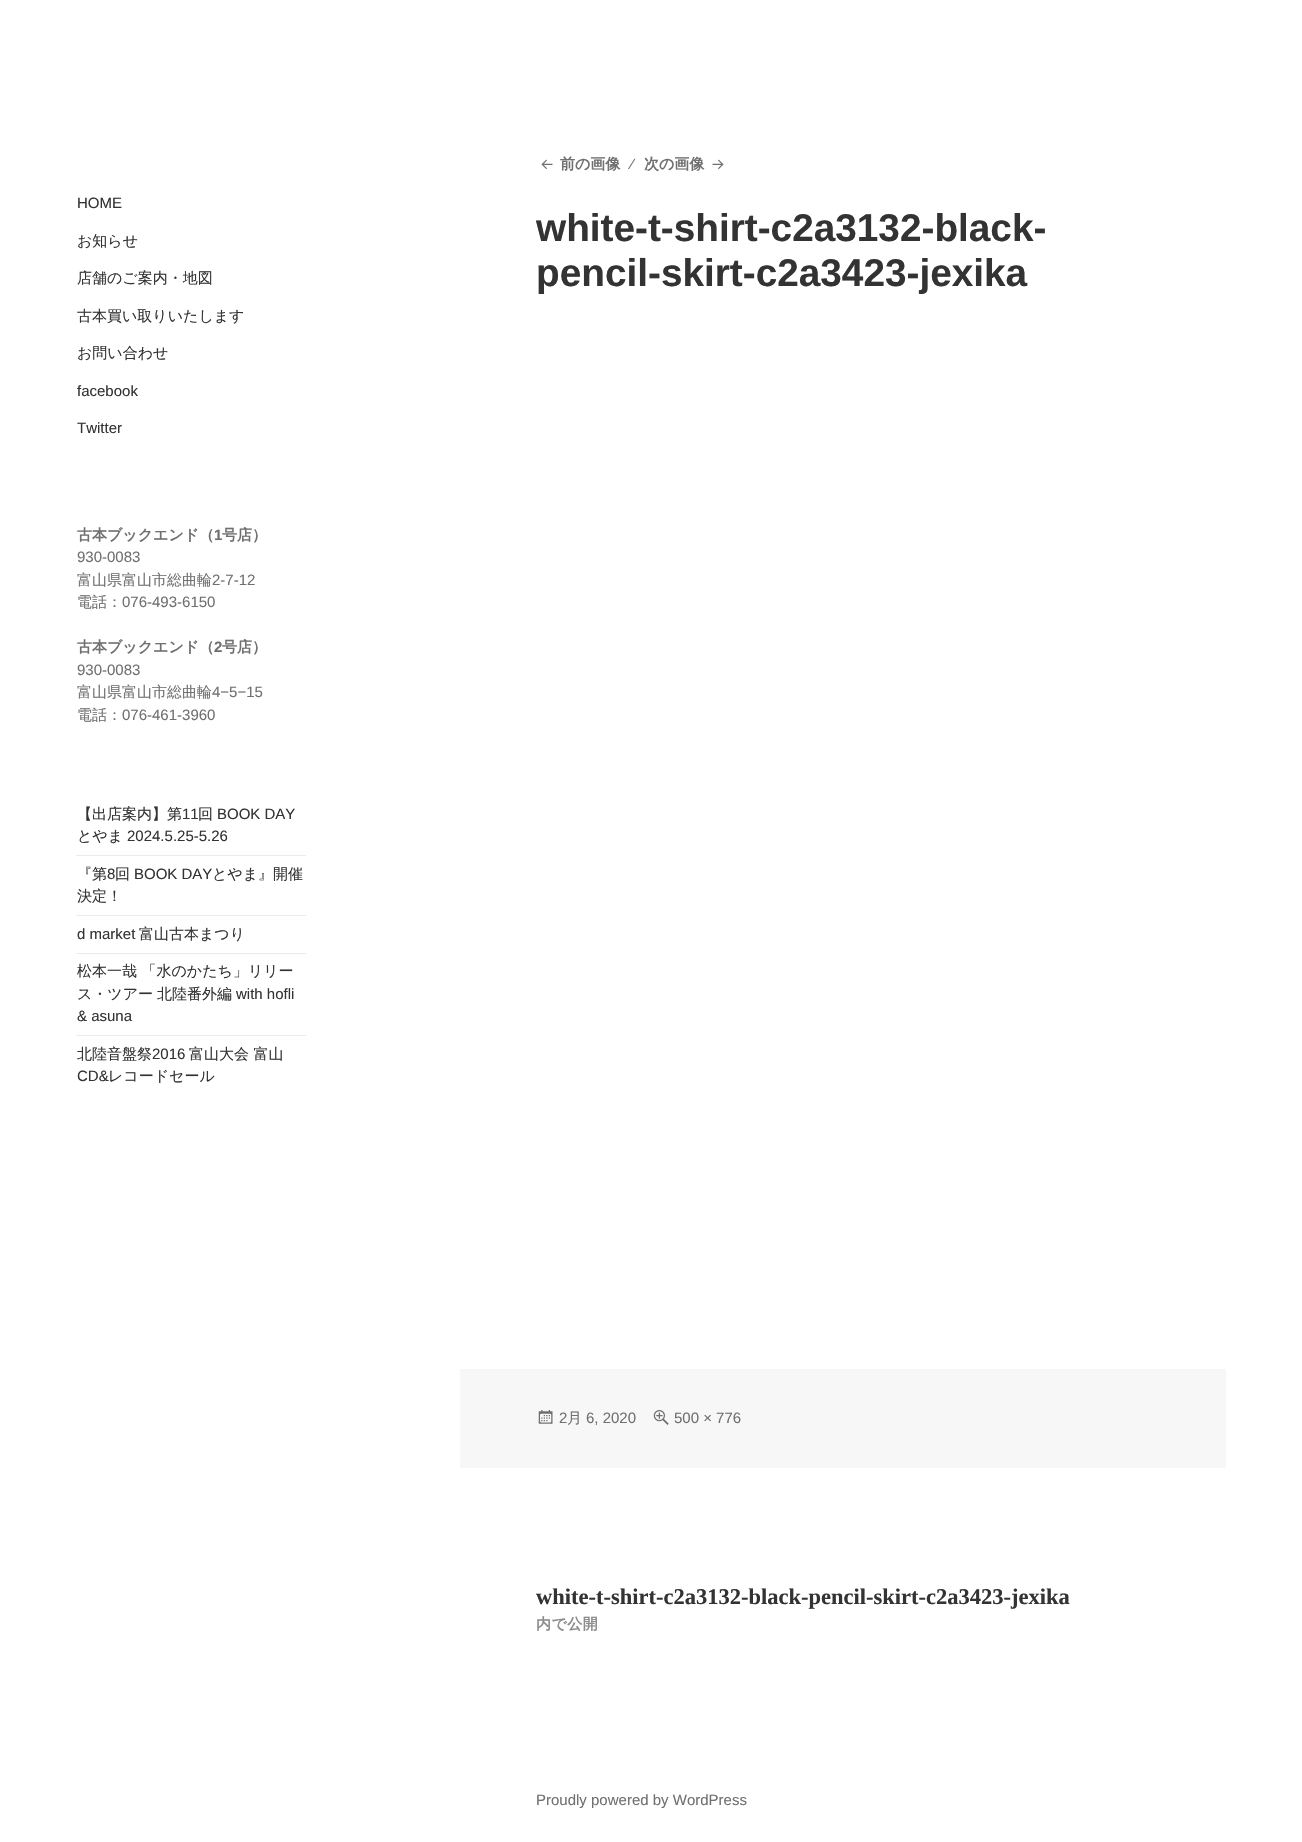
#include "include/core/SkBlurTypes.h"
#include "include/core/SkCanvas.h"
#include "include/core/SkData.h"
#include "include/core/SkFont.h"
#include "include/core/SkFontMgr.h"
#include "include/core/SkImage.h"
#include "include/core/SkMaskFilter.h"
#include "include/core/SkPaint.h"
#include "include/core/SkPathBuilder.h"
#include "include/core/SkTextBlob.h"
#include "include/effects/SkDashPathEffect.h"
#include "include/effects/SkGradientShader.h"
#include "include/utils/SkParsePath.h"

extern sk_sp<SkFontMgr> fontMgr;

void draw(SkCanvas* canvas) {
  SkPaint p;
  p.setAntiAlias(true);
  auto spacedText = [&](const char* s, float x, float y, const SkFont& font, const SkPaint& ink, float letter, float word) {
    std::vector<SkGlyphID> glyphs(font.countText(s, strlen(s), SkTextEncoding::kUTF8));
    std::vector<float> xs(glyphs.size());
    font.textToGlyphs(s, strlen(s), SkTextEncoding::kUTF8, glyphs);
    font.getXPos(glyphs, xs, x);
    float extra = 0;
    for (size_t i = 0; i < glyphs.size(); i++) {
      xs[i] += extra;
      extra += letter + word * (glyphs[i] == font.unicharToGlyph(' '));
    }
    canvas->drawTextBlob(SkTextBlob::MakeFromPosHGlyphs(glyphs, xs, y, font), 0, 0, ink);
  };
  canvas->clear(SK_ColorWHITE);
  p.setColor(SkColorSetRGB(235, 235, 235));
  canvas->drawRect(SkRect::MakeLTRB(76, 855, 306, 856), p);
  canvas->drawRect(SkRect::MakeLTRB(76, 915, 306, 916), p);
  canvas->drawRect(SkRect::MakeLTRB(76, 953, 306, 954), p);
  canvas->drawRect(SkRect::MakeLTRB(76, 1035, 306, 1036), p);
  canvas->drawImageRect(SkImages::DeferredFromEncodedData(SkData::MakeFromFileName("images/1.png")), SkRect::MakeLTRB(541, 159, 553, 170), SkSamplingOptions());
  canvas->drawImageRect(SkImages::DeferredFromEncodedData(SkData::MakeFromFileName("images/2.png")), SkRect::MakeLTRB(712, 159, 724, 170), SkSamplingOptions());
  p.setColor(SkColorSetRGB(247, 247, 247));
  canvas->drawRect(SkRect::MakeLTRB(460, 1369, 1226, 1468), p);
  canvas->drawImageRect(SkImages::DeferredFromEncodedData(SkData::MakeFromFileName("images/3.png")), SkRect::MakeLTRB(538, 1410, 553, 1424), SkSamplingOptions());
  canvas->drawImageRect(SkImages::DeferredFromEncodedData(SkData::MakeFromFileName("images/4.png")), SkRect::MakeLTRB(653, 1410, 669, 1425), SkSamplingOptions());
  SkFont font1(fontMgr->matchFamilyStyle("Liberation Sans", SkFontStyle::Normal()), 15);
  font1.setSubpixel(true);
  p.setColor(SkColorSetRGB(51, 51, 51));
  canvas->drawString("HOME", 77, 208, font1, p);
  SkFont font2(fontMgr->matchFamilyStyle("WenQuanYi Zen Hei", SkFontStyle(500, SkFontStyle::kNormal_Width, SkFontStyle::kUpright_Slant)), 15);
  font2.setSubpixel(true);
  canvas->drawString("お知らせ", 77, 246, font2, p);
  canvas->drawString("店舗のご案内・地図", 77, 283, font2, p);
  canvas->drawString("古本買い取りいたします", 77, 321, font2, p);
  canvas->drawString("お問い合わせ", 77, 358, font2, p);
  canvas->drawString("facebook", 77, 396, font1, p);
  canvas->drawString("Twitter", 77, 433, font1, p);
  SkFont font3(fontMgr->matchFamilyStyle("WenQuanYi Zen Hei", SkFontStyle::Bold()), 15);
  font3.setSubpixel(true);
  p.setColor(SkColorSetRGB(112, 112, 112));
  canvas->drawString("古本ブックエンド（", 77, 540, font3, p);
  SkFont font4(fontMgr->matchFamilyStyle("Liberation Sans", SkFontStyle::Bold()), 15);
  font4.setSubpixel(true);
  canvas->drawString("1", 214, 540, font4, p);
  canvas->drawString("号店）", 222, 540, font3, p);
  canvas->drawString("930-0083", 77, 562, font1, p);
  canvas->drawString("富山県富山市総曲輪", 77, 585, font2, p);
  canvas->drawString("2-7-12", 212, 585, font1, p);
  canvas->drawString("電話：", 77, 607, font2, p);
  canvas->drawString("076-493-6150", 122, 607, font1, p);
  canvas->drawString("古本ブックエンド（", 77, 652, font3, p);
  canvas->drawString("2", 214, 652, font4, p);
  canvas->drawString("号店）", 222, 652, font3, p);
  canvas->drawString("930-0083", 77, 675, font1, p);
  canvas->drawString("富山県富山市総曲輪", 77, 697, font2, p);
  canvas->drawString("4−5−15", 212, 697, font1, p);
  canvas->drawString("電話：", 77, 720, font2, p);
  canvas->drawString("076-461-3960", 122, 720, font1, p);
  p.setColor(SkColorSetRGB(51, 51, 51));
  canvas->drawString("【出店案内】第", 77, 819, font2, p);
  canvas->drawString("11", 182, 819, font1, p);
  canvas->drawString("回", 198, 819, font2, p);
  canvas->drawString("BOOK DAY", 217, 819, font1, p);
  canvas->drawString("とやま", 77, 841, font2, p);
  canvas->drawString("2024.5.25-5.26", 127, 841, font1, p);
  canvas->drawString("『第", 77, 879, font2, p);
  canvas->drawString("8", 107, 879, font1, p);
  canvas->drawString("回", 115, 879, font2, p);
  canvas->drawString("BOOK DAY", 134, 879, font1, p);
  canvas->drawString("とやま』開催", 212, 879, font2, p);
  canvas->drawString("決定！", 77, 901, font2, p);
  canvas->drawString("d market", 77, 939, font1, p);
  canvas->drawString("富山古本まつり", 139, 939, font2, p);
  canvas->drawString("松本一哉 「水のかたち」リリー", 77, 976, font2, p);
  canvas->drawString("ス・ツアー", 77, 999, font2, p);
  canvas->drawString("北陸番外編", 157, 999, font2, p);
  canvas->drawString("with hofli", 236, 999, font1, p);
  canvas->drawString("& asuna", 77, 1021, font1, p);
  canvas->drawString("北陸音盤祭", 77, 1059, font2, p);
  canvas->drawString("2016", 152, 1059, font1, p);
  canvas->drawString("富山大会 富山", 189, 1059, font2, p);
  canvas->drawString("CD&", 77, 1081, font1, p);
  canvas->drawString("レコードセール", 108, 1081, font2, p);
  p.setColor(SkColorSetRGB(112, 112, 112));
  canvas->drawString("前の画像", 560, 169, font3, p);
  canvas->drawString("∕", 631, 169, font1, p);
  canvas->drawString("次の画像", 644, 169, font3, p);
  SkFont font5(fontMgr->matchFamilyStyle("Liberation Sans", SkFontStyle::Bold()), 38.75f);
  font5.setSubpixel(true);
  p.setColor(SkColorSetRGB(51, 51, 51));
  canvas->drawString("white-t-shirt-c2a3132-black-", 536, 241, font5, p);
  canvas->drawString("pencil-skirt-c2a3423-jexika", 536, 286, font5, p);
  p.setColor(SkColorSetRGB(112, 112, 112));
  canvas->drawString("2", 559, 1423, font1, p);
  canvas->drawString("月", 567, 1423, font2, p);
  canvas->drawString("6, 2020", 586, 1423, font1, p);
  canvas->drawString("500 × 776", 674, 1423, font1, p);
  SkFont font6(fontMgr->matchFamilyStyle("Liberation Serif", SkFontStyle::Bold()), 22.5f);
  font6.setSubpixel(true);
  p.setColor(SkColorSetRGB(51, 51, 51));
  canvas->drawString("white-t-shirt-c2a3132-black-pencil-skirt-c2a3423-jexika", 536, 1604, font6, p);
  p.setColor(SkColorSetRGB(141, 141, 141));
  spacedText("内で公開", 536, 1629, font3, p, 0.5f, 0);
  p.setColor(SkColorSetRGB(112, 112, 112));
  canvas->drawString("Proudly powered by WordPress", 536, 1805, font1, p);
}
